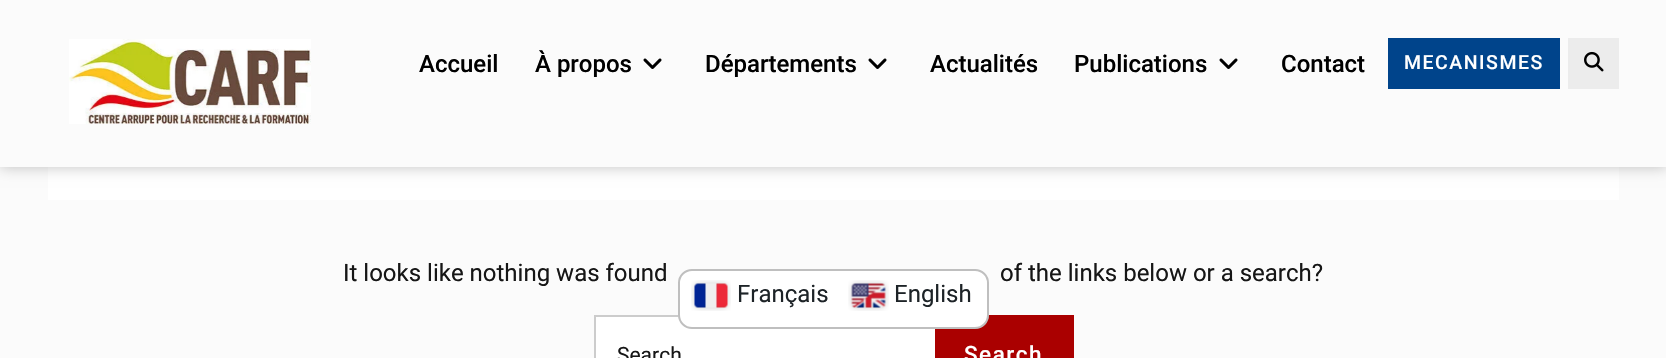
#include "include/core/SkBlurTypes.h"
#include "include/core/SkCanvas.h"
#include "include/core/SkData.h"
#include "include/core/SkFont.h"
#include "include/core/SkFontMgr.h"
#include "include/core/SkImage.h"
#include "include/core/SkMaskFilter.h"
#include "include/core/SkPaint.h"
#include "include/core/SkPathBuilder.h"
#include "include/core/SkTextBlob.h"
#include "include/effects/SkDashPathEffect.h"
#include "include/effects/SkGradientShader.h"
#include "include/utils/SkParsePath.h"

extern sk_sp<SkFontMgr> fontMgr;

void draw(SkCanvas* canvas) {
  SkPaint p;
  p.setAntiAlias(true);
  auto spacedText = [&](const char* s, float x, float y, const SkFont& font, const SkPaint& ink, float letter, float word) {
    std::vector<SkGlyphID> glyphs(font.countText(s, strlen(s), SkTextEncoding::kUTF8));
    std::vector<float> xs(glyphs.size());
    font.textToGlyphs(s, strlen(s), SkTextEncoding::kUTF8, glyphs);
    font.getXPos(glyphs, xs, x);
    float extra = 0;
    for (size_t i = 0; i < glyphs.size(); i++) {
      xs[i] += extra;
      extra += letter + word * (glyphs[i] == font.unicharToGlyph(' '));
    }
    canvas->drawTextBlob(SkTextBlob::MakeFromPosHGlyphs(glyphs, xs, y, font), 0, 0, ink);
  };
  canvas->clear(SkColorSetRGB(251, 251, 251));
  p.setColor(SK_ColorWHITE);
  canvas->drawRect(SkRect::MakeLTRB(48, 167, 1619, 200), p);
  p.setColor(SkColorSetARGB(61, 0, 0, 0));
  p.setMaskFilter(SkMaskFilter::MakeBlur(kNormal_SkBlurStyle, 7));
  canvas->drawRect(SkRect::MakeLTRB(0, 0, 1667, 167), p);
  p.setMaskFilter(nullptr);
  p.setColor(SkColorSetRGB(251, 251, 251));
  canvas->drawRect(SkRect::MakeLTRB(0, 0, 1666, 167), p);
  canvas->drawImageRect(SkImages::DeferredFromEncodedData(SkData::MakeFromFileName("images/1.png")), SkRect::MakeLTRB(69, 39, 311, 124), SkSamplingOptions());
  canvas->drawImageRect(SkImages::DeferredFromEncodedData(SkData::MakeFromFileName("images/2.png")), SkRect::MakeLTRB(643, 58, 662, 69), SkSamplingOptions());
  canvas->drawImageRect(SkImages::DeferredFromEncodedData(SkData::MakeFromFileName("images/2.png")), SkRect::MakeLTRB(868, 58, 887, 69), SkSamplingOptions());
  canvas->drawImageRect(SkImages::DeferredFromEncodedData(SkData::MakeFromFileName("images/2.png")), SkRect::MakeLTRB(1219, 58, 1238, 69), SkSamplingOptions());
  p.setColor(SkColorSetRGB(0, 68, 139));
  canvas->drawRect(SkRect::MakeLTRB(1388, 38, 1560, 89), p);
  p.setColor(SkColorSetRGB(236, 236, 236));
  canvas->drawRect(SkRect::MakeLTRB(1568, 38, 1619, 89), p);
  canvas->drawImageRect(SkImages::DeferredFromEncodedData(SkData::MakeFromFileName("images/3.png")), SkRect::MakeLTRB(1584, 51, 1604, 72), SkSamplingOptions());
  p.setColor(SK_ColorWHITE);
  canvas->drawRect(SkRect::MakeLTRB(596, 317, 935, 358), p);
  p.setStyle(SkPaint::kStroke_Style);
  p.setStrokeWidth(2);
  p.setColor(SkColorSetRGB(204, 204, 204));
  canvas->drawRect(SkRect::MakeLTRB(595, 316, 1073, 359), p);
  p.setStyle(SkPaint::kFill_Style);
  p.setColor(SkColorSetRGB(170, 0, 0));
  canvas->drawRect(SkRect::MakeLTRB(935, 315, 1074, 358), p);
  p.setColor(SK_ColorWHITE);
  canvas->drawRoundRect(SkRect::MakeLTRB(678, 269, 989, 329), 14, 14, p);
  p.setStyle(SkPaint::kStroke_Style);
  p.setColor(SkColorSetARGB(64, 0, 0, 0));
  canvas->drawRoundRect(SkRect::MakeLTRB(679, 270, 988, 328), 13, 13, p);
  canvas->drawImageRect(SkImages::DeferredFromEncodedData(SkData::MakeFromFileName("images/4.png")), SkRect::MakeLTRB(691, 280, 731, 311), SkSamplingOptions());
  canvas->drawImageRect(SkImages::DeferredFromEncodedData(SkData::MakeFromFileName("images/5.png")), SkRect::MakeLTRB(848, 280, 889, 311), SkSamplingOptions());
  SkFont font1(fontMgr->matchFamilyStyle("Roboto", SkFontStyle(500, SkFontStyle::kNormal_Width, SkFontStyle::kUpright_Slant)), 24);
  font1.setSubpixel(true);
  p.setStyle(SkPaint::kFill_Style);
  p.setColor(SK_ColorBLACK);
  canvas->drawString("Accueil", 419, 72, font1, p);
  canvas->drawString("À propos", 535, 72, font1, p);
  canvas->drawString("Départements", 705, 72, font1, p);
  canvas->drawString("Actualités", 930, 72, font1, p);
  canvas->drawString("Publications", 1074, 72, font1, p);
  canvas->drawString("Contact", 1281, 72, font1, p);
  SkFont font2(fontMgr->matchFamilyStyle("Roboto", SkFontStyle(500, SkFontStyle::kNormal_Width, SkFontStyle::kUpright_Slant)), 19.5f);
  font2.setSubpixel(true);
  p.setColor(SK_ColorWHITE);
  spacedText("MECANISMES", 1404, 69, font2, p, 1.5f, 0);
  SkFont font3(fontMgr->matchFamilyStyle("Roboto", SkFontStyle::Normal()), 24);
  font3.setSubpixel(true);
  p.setColor(SkColorSetRGB(22, 22, 22));
  canvas->drawString("It looks like nothing was found", 343, 281, font3, p);
  canvas->drawString("of the links below or a search?", 1000, 281, font3, p);
  SkFont font4(fontMgr->matchFamilyStyle("Roboto", SkFontStyle::Normal()), 21);
  font4.setSubpixel(true);
  canvas->drawString("Search", 617, 362, font4, p);
  SkFont font5(fontMgr->matchFamilyStyle("Roboto", SkFontStyle(500, SkFontStyle::kNormal_Width, SkFontStyle::kUpright_Slant)), 22.5f);
  font5.setSubpixel(true);
  p.setColor(SK_ColorWHITE);
  spacedText("Search", 964, 362, font5, p, 1.5f, 0);
  p.setColor(SkColorSetRGB(29, 35, 39));
  canvas->drawString("Français", 737, 302, font3, p);
  canvas->drawString("English", 894, 302, font3, p);
}
